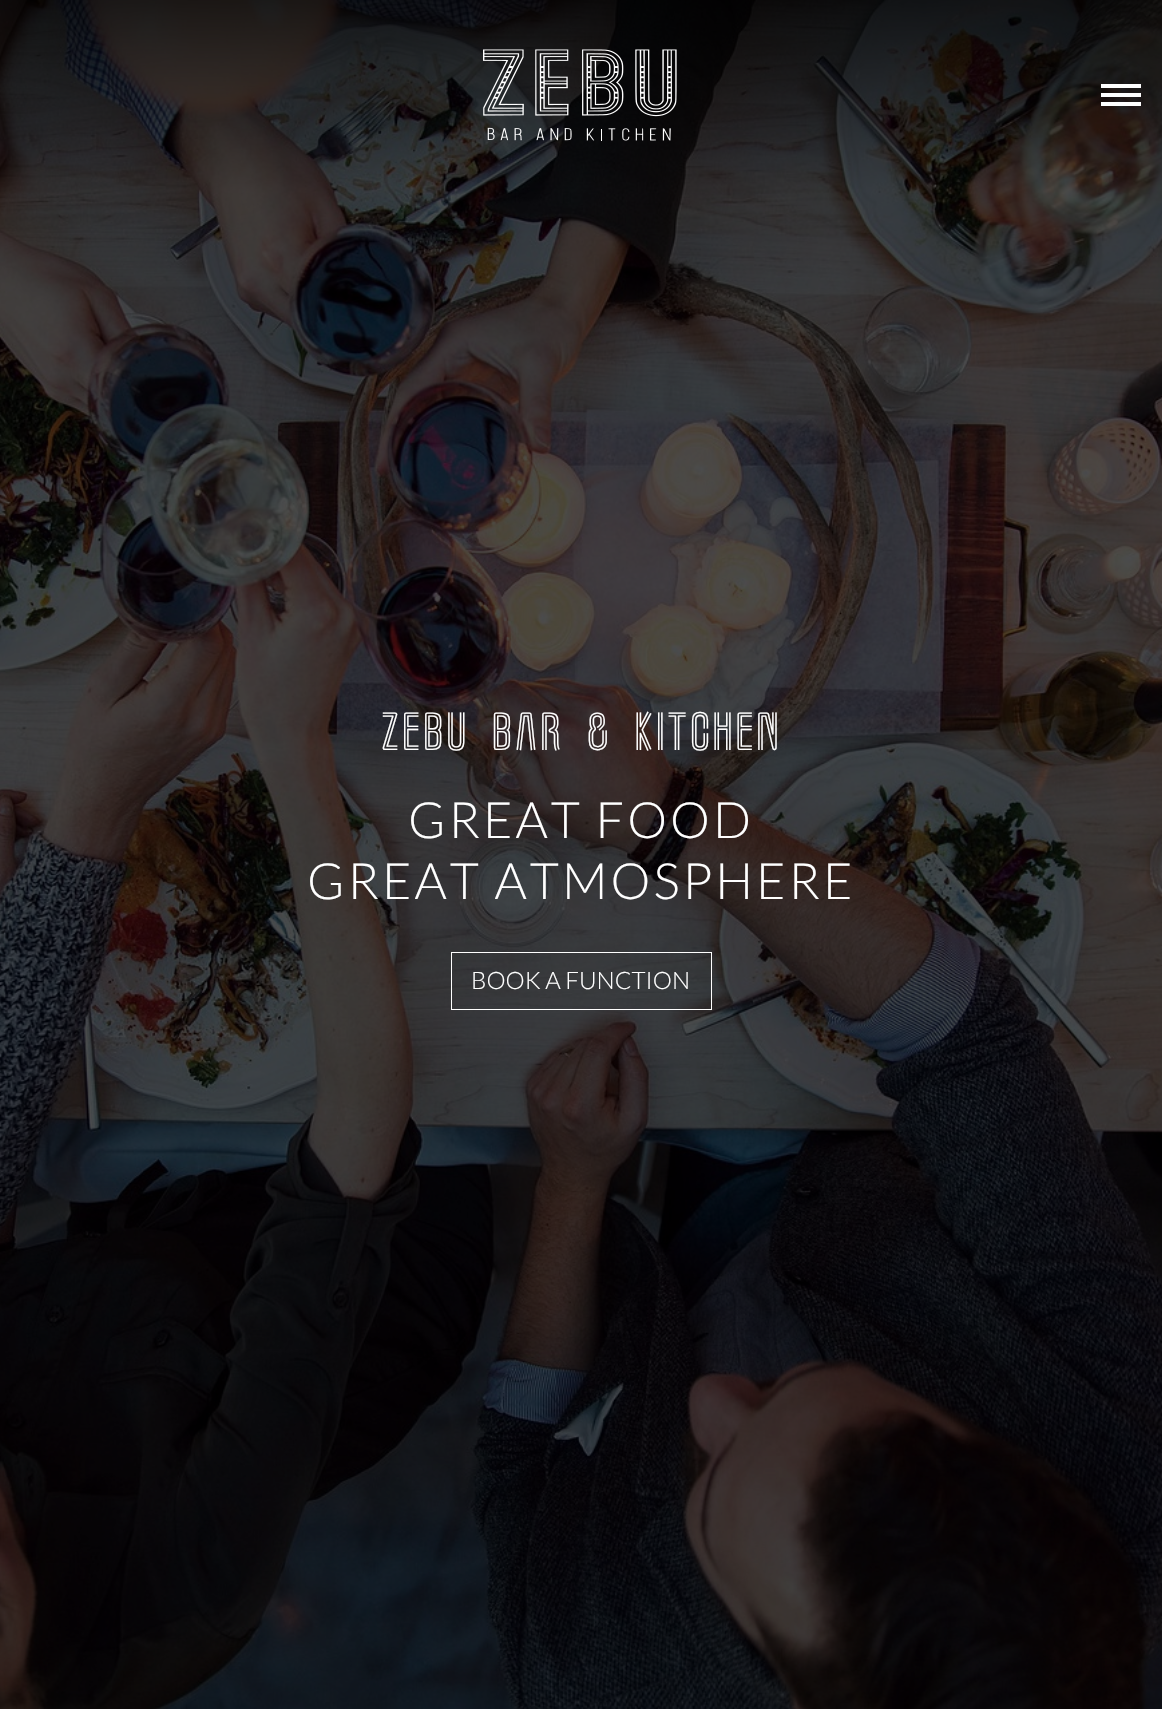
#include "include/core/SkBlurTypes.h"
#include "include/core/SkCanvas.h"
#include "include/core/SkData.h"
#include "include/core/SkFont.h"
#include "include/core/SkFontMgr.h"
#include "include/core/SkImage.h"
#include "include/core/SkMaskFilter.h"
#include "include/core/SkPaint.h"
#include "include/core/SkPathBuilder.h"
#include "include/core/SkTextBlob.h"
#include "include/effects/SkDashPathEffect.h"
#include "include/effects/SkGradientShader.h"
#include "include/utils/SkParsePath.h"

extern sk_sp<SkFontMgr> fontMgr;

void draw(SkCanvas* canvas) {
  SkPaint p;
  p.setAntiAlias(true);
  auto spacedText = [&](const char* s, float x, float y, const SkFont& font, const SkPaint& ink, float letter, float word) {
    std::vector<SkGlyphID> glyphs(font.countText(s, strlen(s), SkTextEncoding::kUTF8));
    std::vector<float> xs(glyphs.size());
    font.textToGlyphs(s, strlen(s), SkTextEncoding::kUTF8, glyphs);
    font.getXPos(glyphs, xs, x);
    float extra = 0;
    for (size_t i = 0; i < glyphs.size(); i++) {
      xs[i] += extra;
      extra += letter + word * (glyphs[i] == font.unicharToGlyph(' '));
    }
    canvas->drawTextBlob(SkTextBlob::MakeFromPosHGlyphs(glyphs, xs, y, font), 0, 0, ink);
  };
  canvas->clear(SK_ColorWHITE);
  canvas->drawImageRect(SkImages::DeferredFromEncodedData(SkData::MakeFromFileName("images/2.png")), SkRect::MakeLTRB(0, 0, 1162, 1709), SkSamplingOptions());
  canvas->drawImageRect(SkImages::DeferredFromEncodedData(SkData::MakeFromFileName("images/1.png")), SkRect::MakeLTRB(483, 49, 677, 141), SkSamplingOptions());
  p.setColor(SK_ColorWHITE);
  canvas->drawRect(SkRect::MakeLTRB(1101, 84, 1141, 88), p);
  canvas->drawRect(SkRect::MakeLTRB(1101, 93, 1141, 97), p);
  canvas->drawRect(SkRect::MakeLTRB(1101, 102, 1141, 106), p);
  p.setStyle(SkPaint::kStroke_Style);
  p.setStrokeWidth(1);
  canvas->drawRect(SkRect::MakeLTRB(451.5f, 952.5f, 711.5f, 1009.5f), p);
  SkFont font1(fontMgr->matchFamilyStyle("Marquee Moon", SkFontStyle::Normal()), 46);
  font1.setSubpixel(true);
  p.setStyle(SkPaint::kFill_Style);
  spacedText("ZEBU BAR & KITCHEN", 381, 750, font1, p, 3, 0);
  SkFont font2(fontMgr->matchFamilyStyle("Lato", SkFontStyle(300, SkFontStyle::kNormal_Width, SkFontStyle::kUpright_Slant)), 50);
  font2.setSubpixel(true);
  spacedText("GREAT FOOD", 408, 838, font2, p, 3, 0);
  spacedText("GREAT ATMOSPHERE", 307, 899, font2, p, 3, 0);
  SkFont font3(fontMgr->matchFamilyStyle("Lato", SkFontStyle(300, SkFontStyle::kNormal_Width, SkFontStyle::kUpright_Slant)), 24);
  font3.setSubpixel(true);
  canvas->drawString("BOOK A FUNCTION", 471, 989, font3, p);
}
